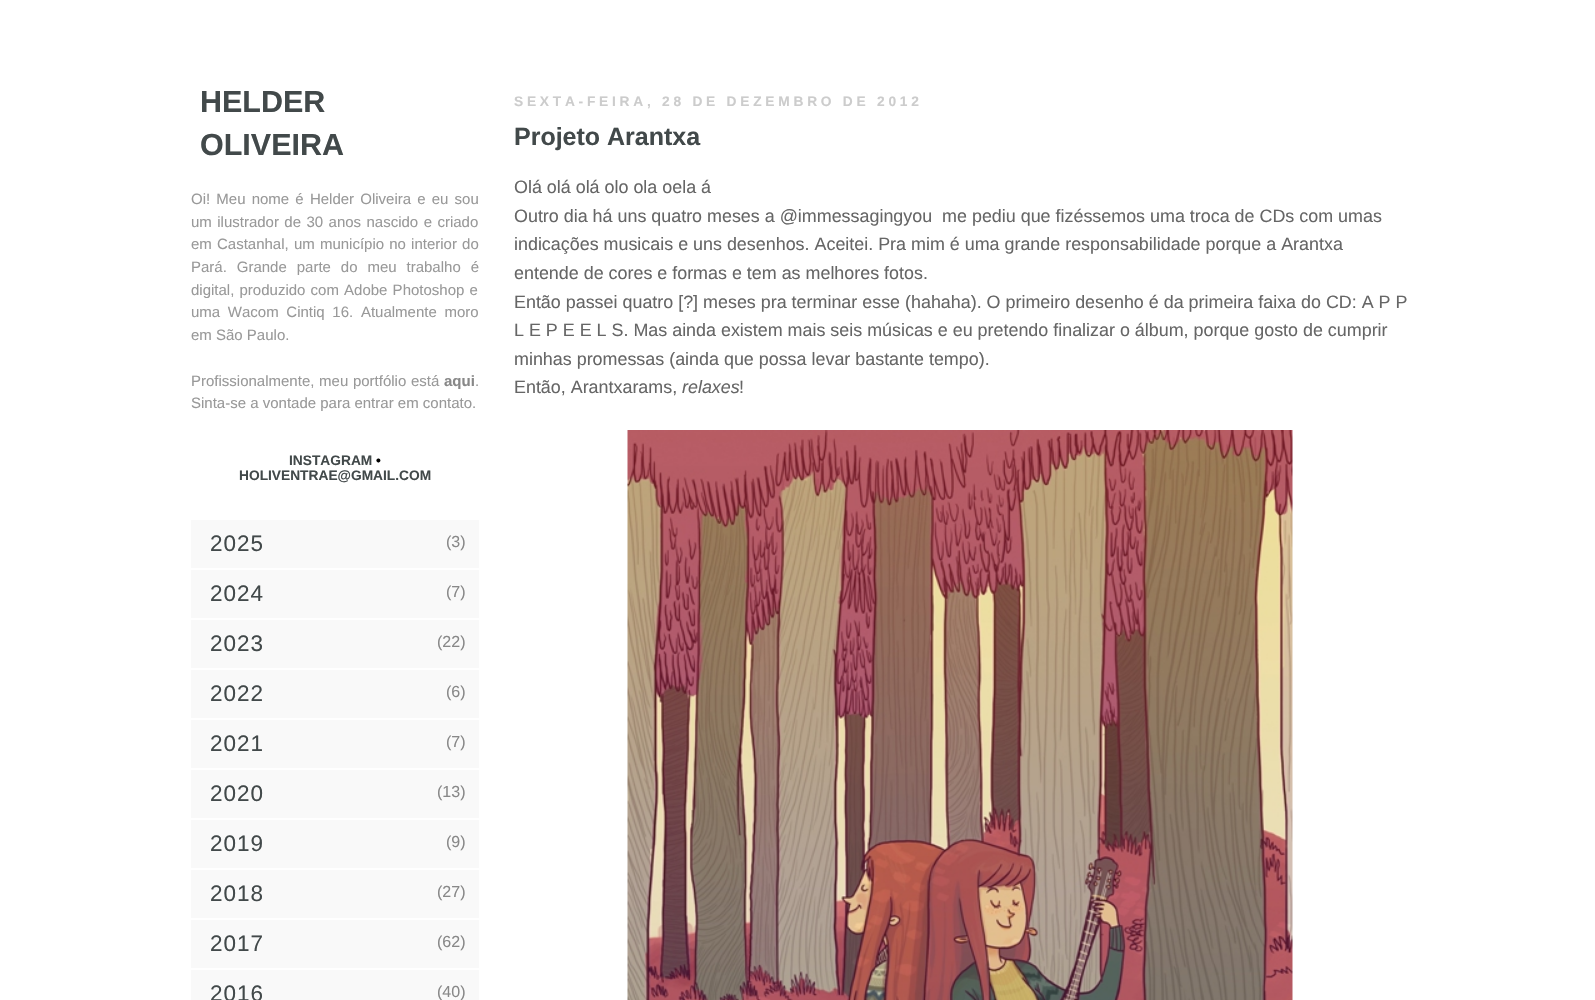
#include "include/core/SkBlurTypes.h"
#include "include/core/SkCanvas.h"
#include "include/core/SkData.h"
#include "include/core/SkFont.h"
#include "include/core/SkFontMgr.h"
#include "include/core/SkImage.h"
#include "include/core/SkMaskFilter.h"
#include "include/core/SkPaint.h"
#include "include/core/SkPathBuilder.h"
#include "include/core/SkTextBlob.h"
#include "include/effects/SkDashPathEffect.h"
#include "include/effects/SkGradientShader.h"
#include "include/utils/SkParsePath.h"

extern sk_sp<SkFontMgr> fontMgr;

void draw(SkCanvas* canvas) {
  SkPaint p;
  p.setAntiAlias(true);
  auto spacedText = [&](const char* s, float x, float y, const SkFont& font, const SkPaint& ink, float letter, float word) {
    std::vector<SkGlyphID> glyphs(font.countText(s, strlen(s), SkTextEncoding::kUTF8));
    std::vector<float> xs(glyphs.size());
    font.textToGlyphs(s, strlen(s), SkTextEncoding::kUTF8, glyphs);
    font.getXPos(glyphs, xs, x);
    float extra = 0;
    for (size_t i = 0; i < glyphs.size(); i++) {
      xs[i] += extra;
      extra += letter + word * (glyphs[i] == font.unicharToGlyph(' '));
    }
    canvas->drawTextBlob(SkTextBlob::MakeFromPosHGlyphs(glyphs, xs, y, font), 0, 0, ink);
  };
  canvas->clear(SK_ColorWHITE);
  p.setColor(SkColorSetRGB(249, 249, 249));
  canvas->drawRect(SkRect::MakeLTRB(191, 520, 479, 568), p);
  canvas->drawRect(SkRect::MakeLTRB(191, 570, 479, 618), p);
  canvas->drawRect(SkRect::MakeLTRB(191, 620, 479, 668), p);
  canvas->drawRect(SkRect::MakeLTRB(191, 670, 479, 718), p);
  canvas->drawRect(SkRect::MakeLTRB(191, 720, 479, 768), p);
  canvas->drawRect(SkRect::MakeLTRB(191, 770, 479, 818), p);
  canvas->drawRect(SkRect::MakeLTRB(191, 820, 479, 868), p);
  canvas->drawRect(SkRect::MakeLTRB(191, 870, 479, 918), p);
  canvas->drawRect(SkRect::MakeLTRB(191, 920, 479, 968), p);
  canvas->drawRect(SkRect::MakeLTRB(191, 970, 479, 1000), p);
  canvas->drawImageRect(SkImages::DeferredFromEncodedData(SkData::MakeFromFileName("images/1.png")), SkRect::MakeLTRB(627, 430, 1293, 1000), SkSamplingOptions());
  SkFont font1(fontMgr->matchFamilyStyle("Liberation Sans", SkFontStyle::Bold()), 30.5f);
  font1.setSubpixel(true);
  p.setColor(SkColorSetRGB(66, 73, 74));
  canvas->drawString("HELDER", 200, 112, font1, p);
  canvas->drawString("OLIVEIRA", 200, 155, font1, p);
  SkFont font2(fontMgr->matchFamilyStyle("Liberation Sans", SkFontStyle::Normal()), 15);
  font2.setSubpixel(true);
  p.setColor(SkColorSetRGB(153, 153, 153));
  spacedText("Oi! Meu nome é Helder Oliveira e eu sou", 191, 204, font2, p, 0, 2);
  spacedText("um ilustrador de 30 anos nascido e criado", 191, 227, font2, p, 0, 1.25f);
  spacedText("em Castanhal, um município no interior do", 191, 249, font2, p, 0, 1);
  spacedText("Pará. Grande parte do meu trabalho é", 191, 272, font2, p, 0, 5.75f);
  spacedText("digital, produzido com Adobe Photoshop e", 191, 295, font2, p, 0, 1);
  spacedText("uma Wacom Cintiq 16. Atualmente moro", 191, 317, font2, p, 0, 3.5f);
  canvas->drawString("em São Paulo.", 191, 340, font2, p);
  spacedText("Profissionalmente, meu portfólio está", 191, 386, font2, p, 0, 0.5f);
  SkFont font3(fontMgr->matchFamilyStyle("Liberation Sans", SkFontStyle::Bold()), 15);
  font3.setSubpixel(true);
  p.setColor(SkColorSetRGB(136, 136, 136));
  canvas->drawString("aqui", 444, 386, font3, p);
  p.setColor(SkColorSetRGB(153, 153, 153));
  canvas->drawString(".", 475, 386, font2, p);
  canvas->drawString("Sinta-se a vontade para entrar em contato.", 191, 408, font2, p);
  SkFont font4(fontMgr->matchFamilyStyle("Liberation Sans", SkFontStyle::Bold()), 13.75f);
  font4.setSubpixel(true);
  p.setColor(SkColorSetRGB(66, 73, 74));
  canvas->drawString("INSTAGRAM", 289, 465, font4, p);
  p.setColor(SK_ColorBLACK);
  canvas->drawString("•", 376, 465, font4, p);
  p.setColor(SkColorSetRGB(66, 73, 74));
  canvas->drawString("HOLIVENTRAE@GMAIL.COM", 239, 480, font4, p);
  SkFont font5(fontMgr->matchFamilyStyle("Liberation Sans", SkFontStyle::Normal()), 22.5f);
  font5.setSubpixel(true);
  spacedText("2025", 210, 551, font5, p, 1, 0);
  SkFont font6(fontMgr->matchFamilyStyle("Liberation Sans", SkFontStyle::Normal()), 16);
  font6.setSubpixel(true);
  p.setColor(SkColorSetRGB(136, 136, 136));
  canvas->drawString("(3)", 446, 547, font6, p);
  p.setColor(SkColorSetRGB(66, 73, 74));
  spacedText("2024", 210, 601, font5, p, 1, 0);
  p.setColor(SkColorSetRGB(136, 136, 136));
  canvas->drawString("(7)", 446, 597, font6, p);
  p.setColor(SkColorSetRGB(66, 73, 74));
  spacedText("2023", 210, 651, font5, p, 1, 0);
  p.setColor(SkColorSetRGB(136, 136, 136));
  canvas->drawString("(22)", 437, 647, font6, p);
  p.setColor(SkColorSetRGB(66, 73, 74));
  spacedText("2022", 210, 701, font5, p, 1, 0);
  p.setColor(SkColorSetRGB(136, 136, 136));
  canvas->drawString("(6)", 446, 697, font6, p);
  p.setColor(SkColorSetRGB(66, 73, 74));
  spacedText("2021", 210, 751, font5, p, 1, 0);
  p.setColor(SkColorSetRGB(136, 136, 136));
  canvas->drawString("(7)", 446, 747, font6, p);
  p.setColor(SkColorSetRGB(66, 73, 74));
  spacedText("2020", 210, 801, font5, p, 1, 0);
  p.setColor(SkColorSetRGB(136, 136, 136));
  canvas->drawString("(13)", 437, 797, font6, p);
  p.setColor(SkColorSetRGB(66, 73, 74));
  spacedText("2019", 210, 851, font5, p, 1, 0);
  p.setColor(SkColorSetRGB(136, 136, 136));
  canvas->drawString("(9)", 446, 847, font6, p);
  p.setColor(SkColorSetRGB(66, 73, 74));
  spacedText("2018", 210, 901, font5, p, 1, 0);
  p.setColor(SkColorSetRGB(136, 136, 136));
  canvas->drawString("(27)", 437, 897, font6, p);
  p.setColor(SkColorSetRGB(66, 73, 74));
  spacedText("2017", 210, 951, font5, p, 1, 0);
  p.setColor(SkColorSetRGB(136, 136, 136));
  canvas->drawString("(62)", 437, 947, font6, p);
  p.setColor(SkColorSetRGB(66, 73, 74));
  spacedText("2016", 210, 1001, font5, p, 1, 0);
  p.setColor(SkColorSetRGB(136, 136, 136));
  canvas->drawString("(40)", 437, 997, font6, p);
  p.setColor(SkColorSetRGB(204, 204, 204));
  spacedText("SEXTA-FEIRA, 28 DE DEZEMBRO DE 2012", 514, 106, font4, p, 3.75f, 0);
  SkFont font7(fontMgr->matchFamilyStyle("Liberation Sans", SkFontStyle::Bold()), 25);
  font7.setSubpixel(true);
  p.setColor(SkColorSetRGB(66, 73, 74));
  canvas->drawString("Projeto Arantxa", 514, 145, font7, p);
  SkFont font8(fontMgr->matchFamilyStyle("Liberation Sans", SkFontStyle::Normal()), 17.9f);
  font8.setSubpixel(true);
  p.setColor(SkColorSetRGB(102, 102, 102));
  canvas->drawString("Olá olá olá olo ola oela á", 514, 193, font8, p);
  canvas->drawString("Outro dia há uns quatro meses a @immessagingyou  me pediu que fizéssemos uma troca de CDs com umas", 514, 222, font8, p);
  canvas->drawString("indicações musicais e uns desenhos. Aceitei. Pra mim é uma grande responsabilidade porque a Arantxa", 514, 250, font8, p);
  canvas->drawString("entende de cores e formas e tem as melhores fotos.", 514, 279, font8, p);
  canvas->drawString("Então passei quatro [?] meses pra terminar esse (hahaha). O primeiro desenho é da primeira faixa do CD: A P P", 514, 308, font8, p);
  canvas->drawString("L E P E E L S. Mas ainda existem mais seis músicas e eu pretendo finalizar o álbum, porque gosto de cumprir", 514, 336, font8, p);
  canvas->drawString("minhas promessas (ainda que possa levar bastante tempo).", 514, 365, font8, p);
  canvas->drawString("Então, Arantxarams,", 514, 393, font8, p);
  SkFont font9(fontMgr->matchFamilyStyle("Liberation Sans", SkFontStyle::Italic()), 17.9f);
  font9.setSubpixel(true);
  canvas->drawString("relaxes", 682, 393, font9, p);
  canvas->drawString("!", 739, 393, font8, p);
}
